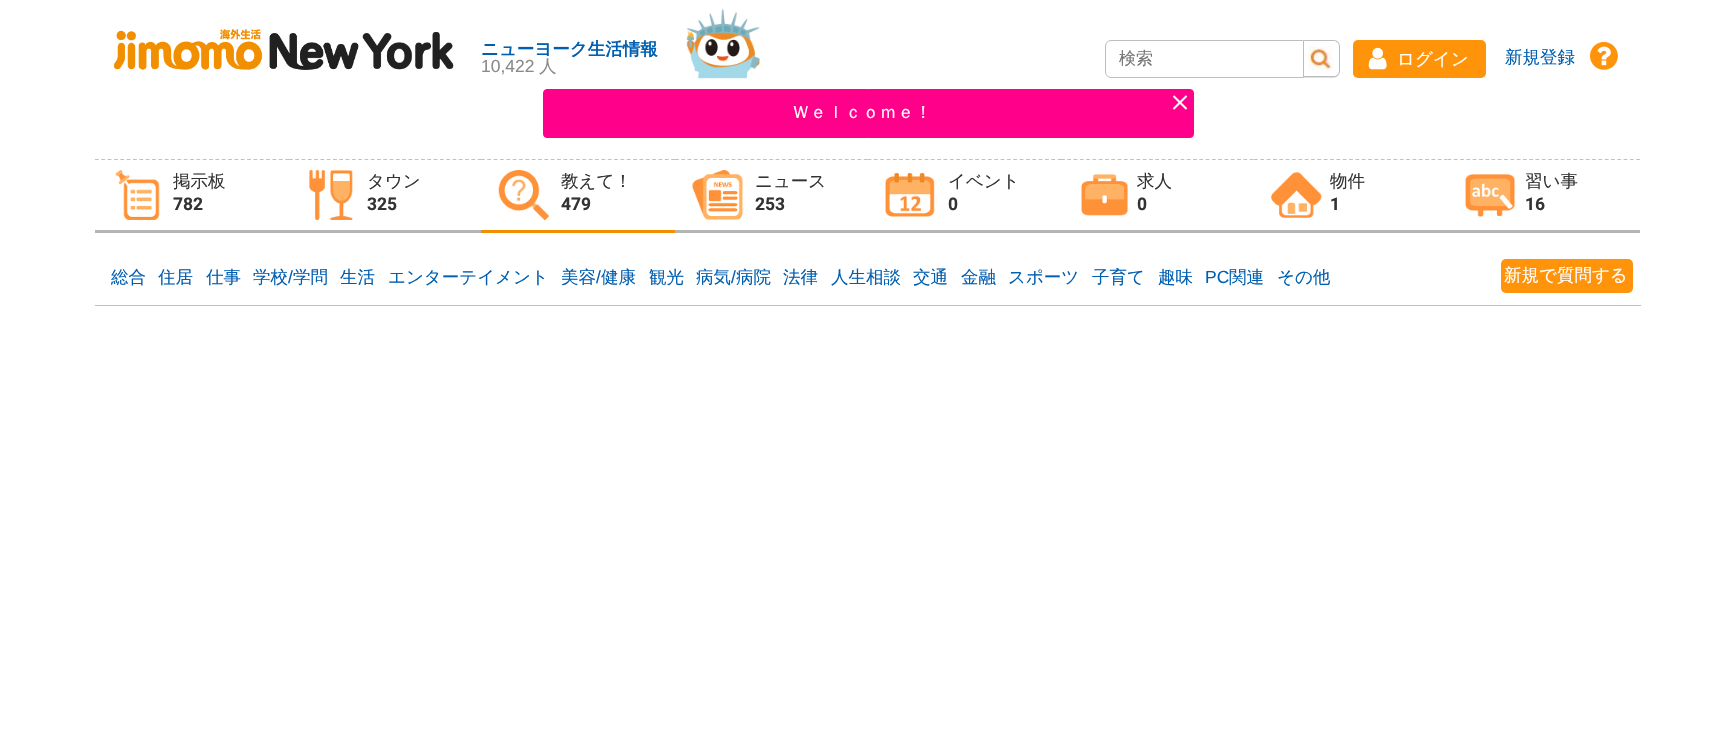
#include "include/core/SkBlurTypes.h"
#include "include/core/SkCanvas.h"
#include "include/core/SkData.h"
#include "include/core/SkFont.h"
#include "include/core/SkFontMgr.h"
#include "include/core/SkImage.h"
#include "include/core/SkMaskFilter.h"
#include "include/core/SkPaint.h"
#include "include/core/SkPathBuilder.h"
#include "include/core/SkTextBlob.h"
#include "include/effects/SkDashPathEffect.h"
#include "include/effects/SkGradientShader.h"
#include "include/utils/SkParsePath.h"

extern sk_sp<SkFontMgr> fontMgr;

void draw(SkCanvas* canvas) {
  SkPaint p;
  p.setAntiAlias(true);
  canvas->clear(SK_ColorWHITE);
  canvas->drawImageRect(SkImages::DeferredFromEncodedData(SkData::MakeFromFileName("images/1.png")), SkRect::MakeLTRB(113, 29, 454, 70), SkSamplingOptions());
  canvas->drawImageRect(SkImages::DeferredFromEncodedData(SkData::MakeFromFileName("images/2.png")), SkRect::MakeLTRB(686, 8, 760, 79), SkSamplingOptions());
  p.setStyle(SkPaint::kStroke_Style);
  p.setStrokeWidth(1);
  p.setColor(SkColorSetRGB(189, 189, 189));
  canvas->drawPath(SkPathBuilder().moveTo(1111, 40.5f).lineTo(1303.5f, 40.5f).lineTo(1303.5f, 77.5f).lineTo(1111, 77.5f).cubicTo(1108, 77.5f, 1105.5f, 75, 1105.5f, 72).lineTo(1105.5f, 46).cubicTo(1105.5f, 43, 1108, 40.5f, 1111, 40.5f).close().detach(), p);
  p.setStyle(SkPaint::kFill_Style);
  canvas->drawPath(SkPathBuilder(SkPathFillType::kEvenOdd).moveTo(1304, 40).lineTo(1334, 40).cubicTo(1337, 40, 1340, 43, 1340, 46).lineTo(1340, 71).cubicTo(1340, 74.5f, 1337, 77.5f, 1334, 77.5f).lineTo(1304, 77.5f).close().moveTo(1304, 41).lineTo(1334, 41).cubicTo(1336.5f, 41, 1339, 43.5f, 1339, 46).lineTo(1339, 71).cubicTo(1339, 74, 1336.5f, 76, 1334, 76).lineTo(1304, 76).close().detach(), p);
  canvas->drawImageRect(SkImages::DeferredFromEncodedData(SkData::MakeFromFileName("images/3.png")), SkRect::MakeLTRB(1308, 46, 1334, 71), SkSamplingOptions());
  p.setColor(SkColorSetRGB(255, 148, 10));
  canvas->drawRoundRect(SkRect::MakeLTRB(1353, 40, 1486, 78), 5, 5, p);
  canvas->drawImageRect(SkImages::DeferredFromEncodedData(SkData::MakeFromFileName("images/4.png")), SkRect::MakeLTRB(1368, 47, 1387, 70), SkSamplingOptions());
  canvas->drawImageRect(SkImages::DeferredFromEncodedData(SkData::MakeFromFileName("images/5.png")), SkRect::MakeLTRB(1590, 42, 1618, 70), SkSamplingOptions());
  p.setColor(SkColorSetRGB(255, 0, 138));
  canvas->drawRoundRect(SkRect::MakeLTRB(543.5f, 89.5f, 1193.5f, 137.5f), 3.5f, 3.5f, p);
  p.setStyle(SkPaint::kStroke_Style);
  canvas->drawRoundRect(SkRect::MakeLTRB(543.5f, 89.5f, 1193.5f, 137.5f), 3.5f, 3.5f, p);
  canvas->drawImageRect(SkImages::DeferredFromEncodedData(SkData::MakeFromFileName("images/6.png")), SkRect::MakeLTRB(1172, 95, 1188, 110), SkSamplingOptions());
  p.setStrokeWidth(1.2f);
  p.setColor(SkColorSetRGB(192, 192, 192));
  p.setPathEffect(SkDashPathEffect::Make({{3.75f, 2.59f}}, 0));
  canvas->drawPath(SkPathBuilder().moveTo(95, 159.5f).lineTo(289, 159.5f).detach(), p);
  p.setPathEffect(nullptr);
  p.setStyle(SkPaint::kFill_Style);
  p.setColor(SkColorSetRGB(181, 181, 181));
  canvas->drawRect(SkRect::MakeLTRB(95, 230, 481, 233), p);
  canvas->drawImageRect(SkImages::DeferredFromEncodedData(SkData::MakeFromFileName("images/7.png")), SkRect::MakeLTRB(115, 170, 160, 220), SkSamplingOptions());
  p.setStyle(SkPaint::kStroke_Style);
  p.setColor(SkColorSetRGB(192, 192, 192));
  p.setPathEffect(SkDashPathEffect::Make({{3.75f, 2.54f}}, 0));
  canvas->drawPath(SkPathBuilder().moveTo(289, 159.5f).lineTo(481, 159.5f).detach(), p);
  p.setPathEffect(nullptr);
  canvas->drawImageRect(SkImages::DeferredFromEncodedData(SkData::MakeFromFileName("images/8.png")), SkRect::MakeLTRB(309, 170, 353, 220), SkSamplingOptions());
  p.setPathEffect(SkDashPathEffect::Make({{3.75f, 2.59f}}, 0));
  canvas->drawPath(SkPathBuilder().moveTo(481, 159.5f).lineTo(675, 159.5f).detach(), p);
  p.setPathEffect(nullptr);
  p.setStyle(SkPaint::kFill_Style);
  p.setColor(SkColorSetRGB(242, 143, 0));
  canvas->drawRect(SkRect::MakeLTRB(481, 230, 675, 233), p);
  canvas->drawImageRect(SkImages::DeferredFromEncodedData(SkData::MakeFromFileName("images/9.png")), SkRect::MakeLTRB(498, 170, 549, 220), SkSamplingOptions());
  p.setStyle(SkPaint::kStroke_Style);
  p.setColor(SkColorSetRGB(192, 192, 192));
  p.setPathEffect(SkDashPathEffect::Make({{3.75f, 2.54f}}, 0));
  canvas->drawPath(SkPathBuilder().moveTo(675, 159.5f).lineTo(867.5f, 159.5f).detach(), p);
  p.setPathEffect(nullptr);
  p.setStyle(SkPaint::kFill_Style);
  p.setColor(SkColorSetRGB(181, 181, 181));
  canvas->drawRect(SkRect::MakeLTRB(675, 230, 1640, 233), p);
  canvas->drawImageRect(SkImages::DeferredFromEncodedData(SkData::MakeFromFileName("images/10.png")), SkRect::MakeLTRB(692, 170, 743, 220), SkSamplingOptions());
  p.setStyle(SkPaint::kStroke_Style);
  p.setColor(SkColorSetRGB(192, 192, 192));
  p.setPathEffect(SkDashPathEffect::Make({{3.75f, 2.59f}}, 0));
  canvas->drawPath(SkPathBuilder().moveTo(867.5f, 159.5f).lineTo(1061, 159.5f).detach(), p);
  p.setPathEffect(nullptr);
  canvas->drawImageRect(SkImages::DeferredFromEncodedData(SkData::MakeFromFileName("images/11.png")), SkRect::MakeLTRB(885, 173, 935, 217), SkSamplingOptions());
  p.setPathEffect(SkDashPathEffect::Make({{3.75f, 2.54f}}, 0));
  canvas->drawPath(SkPathBuilder().moveTo(1061, 159.5f).lineTo(1254, 159.5f).detach(), p);
  p.setPathEffect(nullptr);
  canvas->drawImageRect(SkImages::DeferredFromEncodedData(SkData::MakeFromFileName("images/12.png")), SkRect::MakeLTRB(1081, 174, 1128, 216), SkSamplingOptions());
  p.setPathEffect(SkDashPathEffect::Make({{3.75f, 2.59f}}, 0));
  canvas->drawPath(SkPathBuilder().moveTo(1254, 159.5f).lineTo(1447.5f, 159.5f).detach(), p);
  p.setPathEffect(nullptr);
  canvas->drawImageRect(SkImages::DeferredFromEncodedData(SkData::MakeFromFileName("images/13.png")), SkRect::MakeLTRB(1271, 172, 1322, 218), SkSamplingOptions());
  canvas->save();
  canvas->clipRect(SkRect::MakeLTRB(1448, 159, 1640, 233));
  p.setPathEffect(SkDashPathEffect::Make({{3.75f, 2.54f}}, 0));
  canvas->drawPath(SkPathBuilder().moveTo(1447.5f, 159.5f).lineTo(1640, 159.5f).detach(), p);
  p.setPathEffect(nullptr);
  canvas->restore();
  canvas->drawImageRect(SkImages::DeferredFromEncodedData(SkData::MakeFromFileName("images/14.png")), SkRect::MakeLTRB(1465, 174, 1515, 217), SkSamplingOptions());
  p.setStyle(SkPaint::kFill_Style);
  canvas->drawRect(SkRect::MakeLTRB(95, 305, 1641, 306), p);
  p.setColor(SkColorSetRGB(255, 148, 10));
  canvas->drawRoundRect(SkRect::MakeLTRB(1501, 259, 1633, 293), 5, 5, p);
  SkFont font1(fontMgr->matchFamilyStyle("WenQuanYi Zen Hei", SkFontStyle::Bold()), 17.5f);
  font1.setSubpixel(true);
  p.setColor(SkColorSetRGB(0, 95, 176));
  canvas->drawString("ニューヨーク生活情報", 481, 55, font1, p);
  SkFont font2(fontMgr->matchFamilyStyle("Liberation Sans", SkFontStyle::Normal()), 17.5f);
  font2.setSubpixel(true);
  p.setColor(SkColorSetRGB(138, 138, 138));
  canvas->drawString("10,422", 481, 72, font2, p);
  SkFont font3(fontMgr->matchFamilyStyle("WenQuanYi Zen Hei", SkFontStyle(500, SkFontStyle::kNormal_Width, SkFontStyle::kUpright_Slant)), 17.5f);
  font3.setSubpixel(true);
  canvas->drawString("人", 539, 72, font3, p);
  SkFont font4(fontMgr->matchFamilyStyle("WenQuanYi Zen Hei", SkFontStyle(500, SkFontStyle::kNormal_Width, SkFontStyle::kUpright_Slant)), 17);
  font4.setSubpixel(true);
  p.setColor(SkColorSetRGB(117, 117, 117));
  canvas->drawString("検索", 1119, 64, font4, p);
  p.setColor(SK_ColorWHITE);
  canvas->drawString("ログイン", 1397, 65, font3, p);
  p.setColor(SkColorSetRGB(0, 95, 176));
  canvas->drawString("新規登録", 1505, 63, font3, p);
  p.setColor(SK_ColorWHITE);
  canvas->drawString("Ｗｅｌｃｏｍｅ！", 792, 118, font3, p);
  p.setColor(SkColorSetRGB(51, 51, 51));
  canvas->drawString("掲示板", 173, 187, font3, p);
  SkFont font5(fontMgr->matchFamilyStyle("Roboto", SkFontStyle::Bold()), 17.5f);
  font5.setSubpixel(true);
  canvas->drawString("782", 173, 210, font5, p);
  canvas->drawString("タウン", 367, 187, font3, p);
  canvas->drawString("325", 367, 210, font5, p);
  canvas->drawString("教えて！", 561, 187, font3, p);
  canvas->drawString("479", 561, 210, font5, p);
  canvas->drawString("ニュース", 755, 187, font3, p);
  canvas->drawString("253", 755, 210, font5, p);
  canvas->drawString("イベント", 948, 187, font3, p);
  canvas->drawString("0", 948, 210, font5, p);
  canvas->drawString("求人", 1137, 187, font3, p);
  canvas->drawString("0", 1137, 210, font5, p);
  canvas->drawString("物件", 1330, 187, font3, p);
  canvas->drawString("1", 1330, 210, font5, p);
  canvas->drawString("習い事", 1525, 187, font3, p);
  canvas->drawString("16", 1525, 210, font5, p);
  p.setColor(SkColorSetRGB(0, 95, 176));
  canvas->drawString("総合", 111, 283, font3, p);
  canvas->drawString("住居", 158, 283, font3, p);
  canvas->drawString("仕事", 206, 283, font3, p);
  canvas->drawString("学校", 253, 283, font3, p);
  canvas->drawString("/", 288, 283, font2, p);
  canvas->drawString("学問", 293, 283, font3, p);
  canvas->drawString("生活", 340, 283, font3, p);
  canvas->drawString("エンターテイメント", 388, 283, font3, p);
  canvas->drawString("美容", 561, 283, font3, p);
  canvas->drawString("/", 596, 283, font2, p);
  canvas->drawString("健康", 601, 283, font3, p);
  canvas->drawString("観光", 649, 283, font3, p);
  canvas->drawString("病気", 696, 283, font3, p);
  canvas->drawString("/", 731, 283, font2, p);
  canvas->drawString("病院", 736, 283, font3, p);
  canvas->drawString("法律", 783, 283, font3, p);
  canvas->drawString("人生相談", 831, 283, font3, p);
  canvas->drawString("交通", 913, 283, font3, p);
  canvas->drawString("金融", 961, 283, font3, p);
  canvas->drawString("スポーツ", 1008, 283, font3, p);
  canvas->drawString("子育て", 1092, 283, font3, p);
  canvas->drawString("趣味", 1158, 283, font3, p);
  canvas->drawString("PC", 1205, 283, font2, p);
  canvas->drawString("関連", 1229, 283, font3, p);
  canvas->drawString("その他", 1277, 283, font3, p);
  p.setColor(SK_ColorWHITE);
  canvas->drawString("新規で質問する", 1504, 281, font3, p);
}
